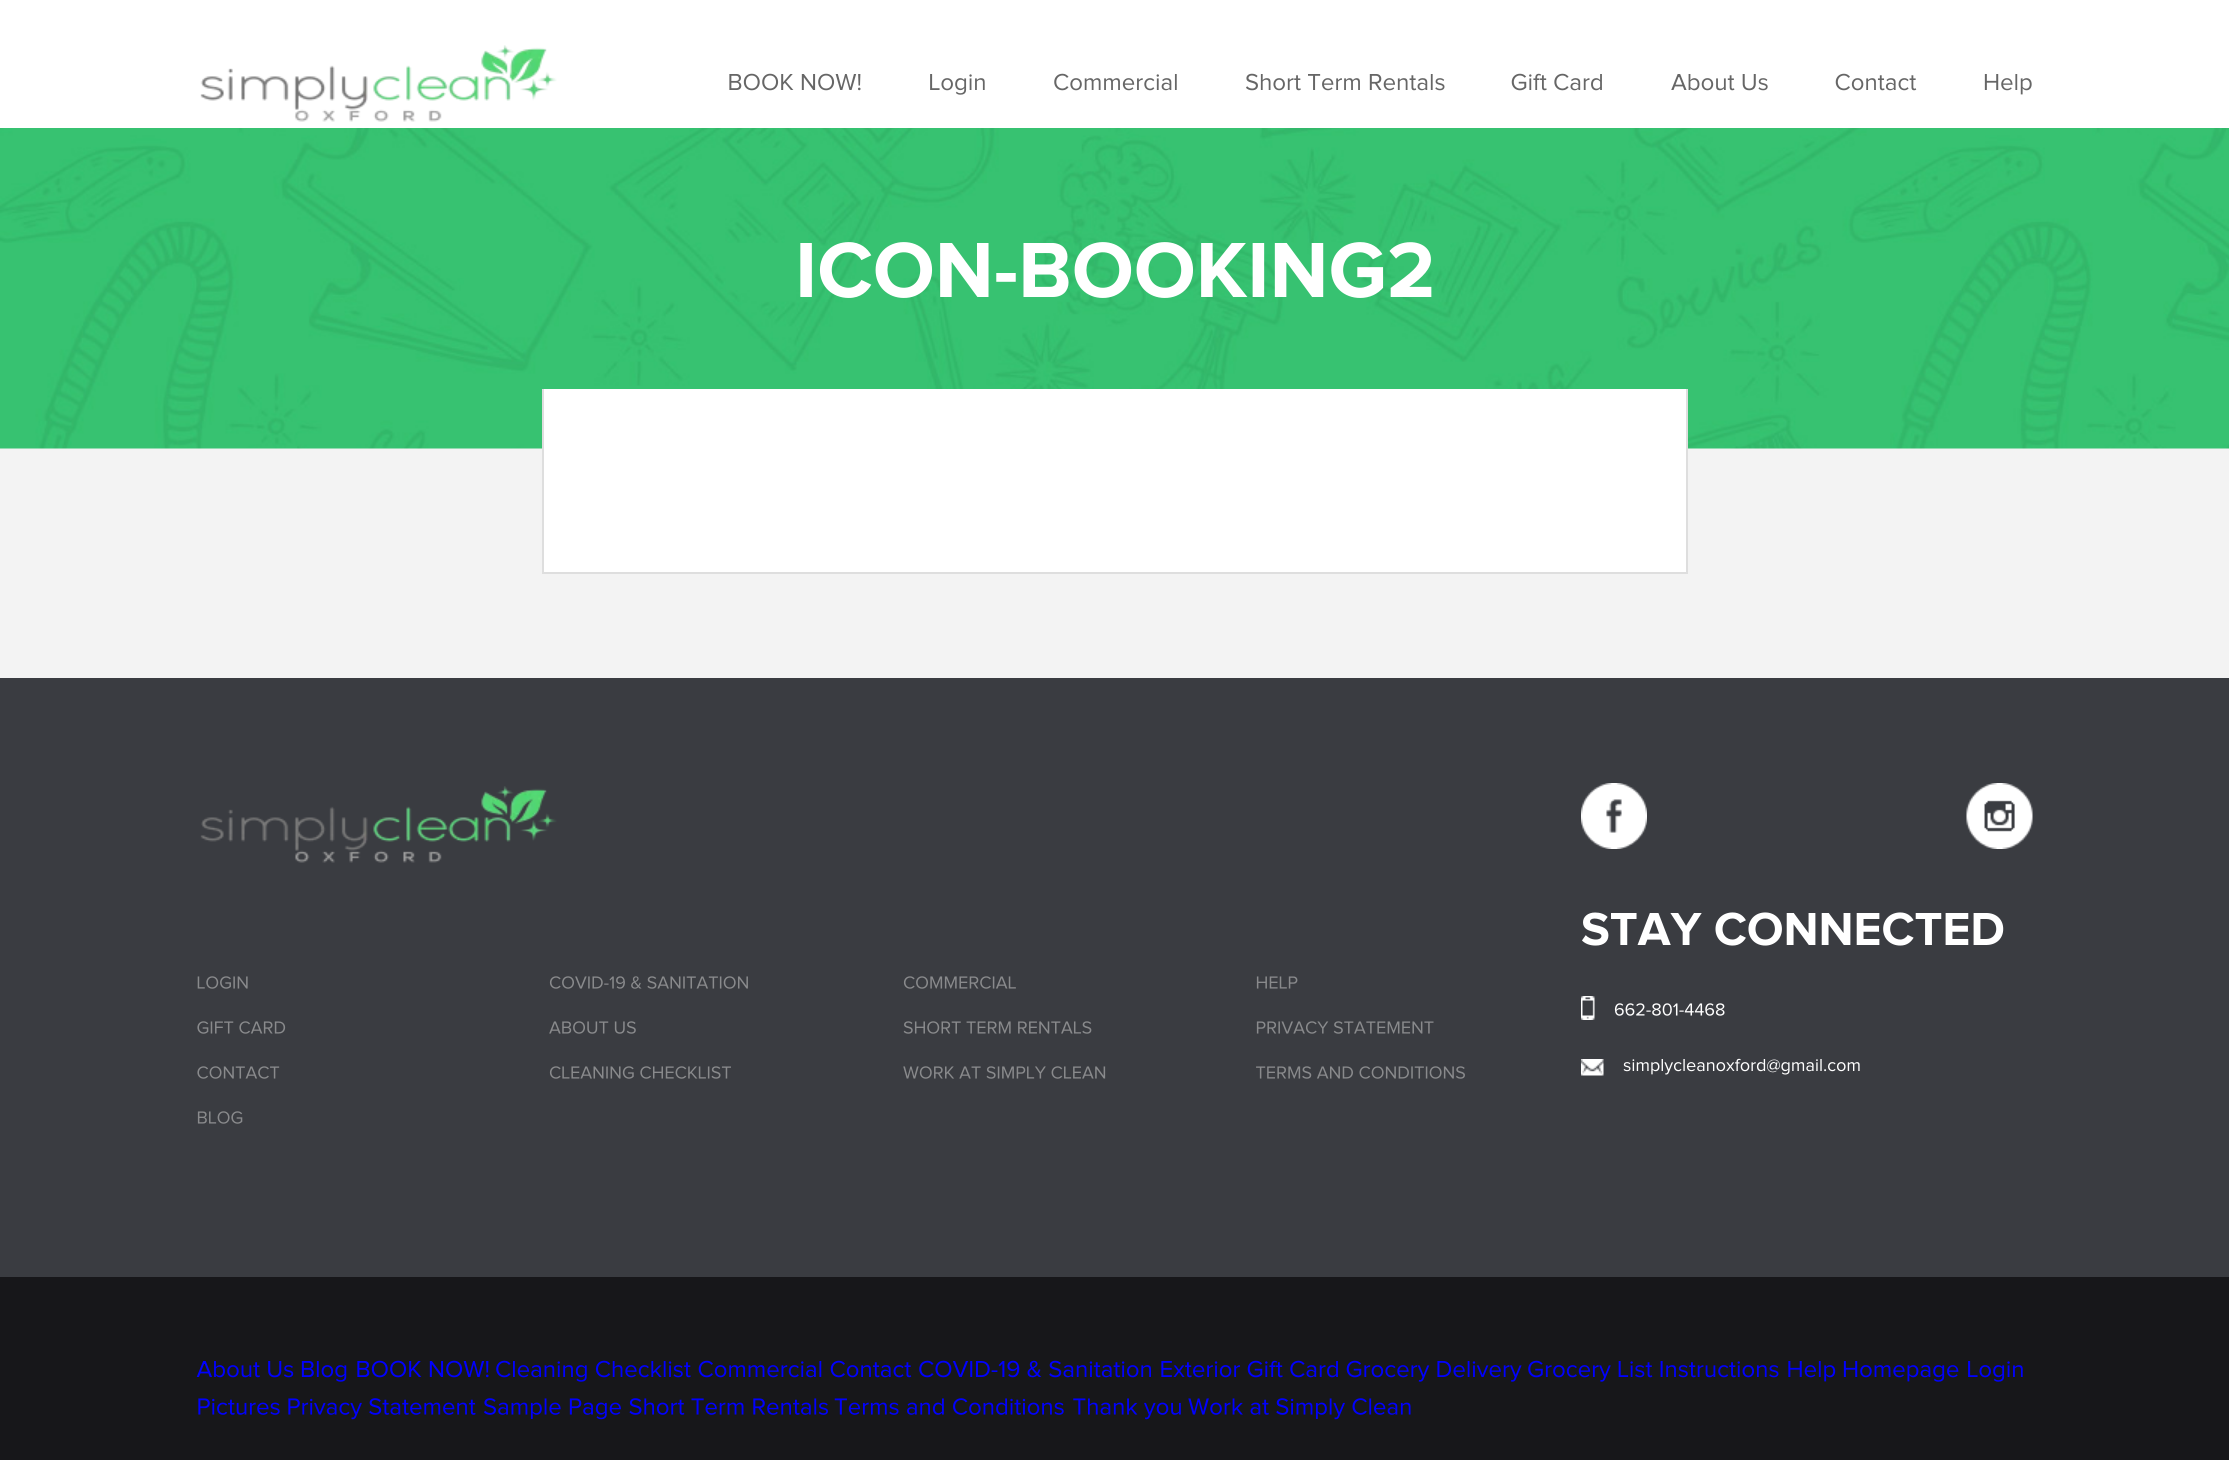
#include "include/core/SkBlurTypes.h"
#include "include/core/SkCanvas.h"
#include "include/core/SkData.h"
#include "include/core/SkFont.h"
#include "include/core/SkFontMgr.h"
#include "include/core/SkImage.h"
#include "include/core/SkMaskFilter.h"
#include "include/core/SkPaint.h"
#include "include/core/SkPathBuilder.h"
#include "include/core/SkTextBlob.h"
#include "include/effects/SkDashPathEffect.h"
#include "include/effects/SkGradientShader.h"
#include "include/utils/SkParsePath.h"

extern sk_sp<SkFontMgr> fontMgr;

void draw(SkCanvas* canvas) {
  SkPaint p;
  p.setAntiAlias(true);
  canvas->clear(SK_ColorWHITE);
  canvas->drawImageRect(SkImages::DeferredFromEncodedData(SkData::MakeFromFileName("images/1.png")), SkRect::MakeLTRB(200, 45, 557, 122), SkSamplingOptions());
  canvas->drawImageRect(SkImages::DeferredFromEncodedData(SkData::MakeFromFileName("images/2.png")), SkRect::MakeLTRB(729, 73, 861, 91), SkSamplingOptions());
  canvas->drawImageRect(SkImages::DeferredFromEncodedData(SkData::MakeFromFileName("images/3.png")), SkRect::MakeLTRB(930, 74, 985, 95), SkSamplingOptions());
  canvas->drawImageRect(SkImages::DeferredFromEncodedData(SkData::MakeFromFileName("images/4.png")), SkRect::MakeLTRB(1054, 73, 1177, 91), SkSamplingOptions());
  canvas->drawImageRect(SkImages::DeferredFromEncodedData(SkData::MakeFromFileName("images/5.png")), SkRect::MakeLTRB(1246, 73, 1445, 91), SkSamplingOptions());
  canvas->drawImageRect(SkImages::DeferredFromEncodedData(SkData::MakeFromFileName("images/6.png")), SkRect::MakeLTRB(1511, 73, 1602, 91), SkSamplingOptions());
  canvas->drawImageRect(SkImages::DeferredFromEncodedData(SkData::MakeFromFileName("images/7.png")), SkRect::MakeLTRB(1671, 74, 1768, 91), SkSamplingOptions());
  canvas->drawImageRect(SkImages::DeferredFromEncodedData(SkData::MakeFromFileName("images/8.png")), SkRect::MakeLTRB(1835, 73, 1917, 91), SkSamplingOptions());
  canvas->drawImageRect(SkImages::DeferredFromEncodedData(SkData::MakeFromFileName("images/9.png")), SkRect::MakeLTRB(1984, 74, 2032, 95), SkSamplingOptions());
  p.setColor(SkColorSetRGB(243, 243, 243));
  canvas->drawRect(SkRect::MakeLTRB(0, 448, 2229, 678), p);
  canvas->drawImageRect(SkImages::DeferredFromEncodedData(SkData::MakeFromFileName("images/10.png")), SkRect::MakeLTRB(0, 128, 2229, 449), SkSamplingOptions());
  canvas->drawImageRect(SkImages::DeferredFromEncodedData(SkData::MakeFromFileName("images/11.png")), SkRect::MakeLTRB(800, 242, 1432, 298), SkSamplingOptions());
  p.setColor(SK_ColorWHITE);
  canvas->drawRect(SkRect::MakeLTRB(544, 389, 1686, 572), p);
  p.setColor(SkColorSetRGB(222, 222, 222));
  canvas->drawRect(SkRect::MakeLTRB(1686, 389, 1688, 573), p);
  canvas->drawRect(SkRect::MakeLTRB(542, 572, 1688, 574), p);
  canvas->drawRect(SkRect::MakeLTRB(542, 389, 544, 573), p);
  p.setColor(SkColorSetRGB(58, 60, 65));
  canvas->drawRect(SkRect::MakeLTRB(0, 678, 2229, 1277), p);
  canvas->drawImageRect(SkImages::DeferredFromEncodedData(SkData::MakeFromFileName("images/12.png")), SkRect::MakeLTRB(200, 786, 557, 863), SkSamplingOptions());
  canvas->drawImageRect(SkImages::DeferredFromEncodedData(SkData::MakeFromFileName("images/13.png")), SkRect::MakeLTRB(197, 976, 248, 989), SkSamplingOptions());
  canvas->drawImageRect(SkImages::DeferredFromEncodedData(SkData::MakeFromFileName("images/14.png")), SkRect::MakeLTRB(197, 1021, 286, 1034), SkSamplingOptions());
  canvas->drawImageRect(SkImages::DeferredFromEncodedData(SkData::MakeFromFileName("images/15.png")), SkRect::MakeLTRB(197, 1066, 280, 1079), SkSamplingOptions());
  canvas->drawImageRect(SkImages::DeferredFromEncodedData(SkData::MakeFromFileName("images/16.png")), SkRect::MakeLTRB(197, 1111, 243, 1124), SkSamplingOptions());
  canvas->drawImageRect(SkImages::DeferredFromEncodedData(SkData::MakeFromFileName("images/17.png")), SkRect::MakeLTRB(549, 976, 748, 989), SkSamplingOptions());
  canvas->drawImageRect(SkImages::DeferredFromEncodedData(SkData::MakeFromFileName("images/18.png")), SkRect::MakeLTRB(549, 1021, 636, 1034), SkSamplingOptions());
  canvas->drawImageRect(SkImages::DeferredFromEncodedData(SkData::MakeFromFileName("images/19.png")), SkRect::MakeLTRB(549, 1066, 731, 1079), SkSamplingOptions());
  canvas->drawImageRect(SkImages::DeferredFromEncodedData(SkData::MakeFromFileName("images/20.png")), SkRect::MakeLTRB(903, 976, 1016, 989), SkSamplingOptions());
  canvas->drawImageRect(SkImages::DeferredFromEncodedData(SkData::MakeFromFileName("images/21.png")), SkRect::MakeLTRB(903, 1021, 1092, 1034), SkSamplingOptions());
  canvas->drawImageRect(SkImages::DeferredFromEncodedData(SkData::MakeFromFileName("images/22.png")), SkRect::MakeLTRB(903, 1066, 1106, 1079), SkSamplingOptions());
  canvas->drawImageRect(SkImages::DeferredFromEncodedData(SkData::MakeFromFileName("images/23.png")), SkRect::MakeLTRB(1256, 976, 1298, 989), SkSamplingOptions());
  canvas->drawImageRect(SkImages::DeferredFromEncodedData(SkData::MakeFromFileName("images/24.png")), SkRect::MakeLTRB(1256, 1021, 1434, 1034), SkSamplingOptions());
  canvas->drawImageRect(SkImages::DeferredFromEncodedData(SkData::MakeFromFileName("images/25.png")), SkRect::MakeLTRB(1256, 1066, 1465, 1079), SkSamplingOptions());
  canvas->drawImageRect(SkImages::DeferredFromEncodedData(SkData::MakeFromFileName("images/26.png")), SkRect::MakeLTRB(1581, 783, 1647, 849), SkSamplingOptions());
  canvas->drawImageRect(SkImages::DeferredFromEncodedData(SkData::MakeFromFileName("images/27.png")), SkRect::MakeLTRB(1966, 783, 2033, 849), SkSamplingOptions());
  canvas->drawImageRect(SkImages::DeferredFromEncodedData(SkData::MakeFromFileName("images/28.png")), SkRect::MakeLTRB(1582, 912, 2004, 946), SkSamplingOptions());
  canvas->drawImageRect(SkImages::DeferredFromEncodedData(SkData::MakeFromFileName("images/29.png")), SkRect::MakeLTRB(1581, 996, 1595, 1020), SkSamplingOptions());
  canvas->drawImageRect(SkImages::DeferredFromEncodedData(SkData::MakeFromFileName("images/30.png")), SkRect::MakeLTRB(1614, 1003, 1725, 1016), SkSamplingOptions());
  canvas->drawImageRect(SkImages::DeferredFromEncodedData(SkData::MakeFromFileName("images/31.png")), SkRect::MakeLTRB(1581, 1059, 1604, 1076), SkSamplingOptions());
  canvas->drawImageRect(SkImages::DeferredFromEncodedData(SkData::MakeFromFileName("images/32.png")), SkRect::MakeLTRB(1623, 1058, 1860, 1075), SkSamplingOptions());
  p.setColor(SkColorSetRGB(23, 23, 26));
  canvas->drawRect(SkRect::MakeLTRB(0, 1277, 2229, 1460), p);
  canvas->drawImageRect(SkImages::DeferredFromEncodedData(SkData::MakeFromFileName("images/33.png")), SkRect::MakeLTRB(196, 1361, 294, 1378), SkSamplingOptions());
  canvas->drawImageRect(SkImages::DeferredFromEncodedData(SkData::MakeFromFileName("images/34.png")), SkRect::MakeLTRB(301, 1361, 347, 1382), SkSamplingOptions());
  canvas->drawImageRect(SkImages::DeferredFromEncodedData(SkData::MakeFromFileName("images/35.png")), SkRect::MakeLTRB(357, 1360, 489, 1378), SkSamplingOptions());
  canvas->drawImageRect(SkImages::DeferredFromEncodedData(SkData::MakeFromFileName("images/36.png")), SkRect::MakeLTRB(496, 1360, 691, 1382), SkSamplingOptions());
  canvas->drawImageRect(SkImages::DeferredFromEncodedData(SkData::MakeFromFileName("images/37.png")), SkRect::MakeLTRB(698, 1360, 822, 1378), SkSamplingOptions());
  canvas->drawImageRect(SkImages::DeferredFromEncodedData(SkData::MakeFromFileName("images/38.png")), SkRect::MakeLTRB(830, 1360, 912, 1378), SkSamplingOptions());
  canvas->drawImageRect(SkImages::DeferredFromEncodedData(SkData::MakeFromFileName("images/39.png")), SkRect::MakeLTRB(919, 1360, 1151, 1378), SkSamplingOptions());
  canvas->drawImageRect(SkImages::DeferredFromEncodedData(SkData::MakeFromFileName("images/40.png")), SkRect::MakeLTRB(1161, 1361, 1240, 1378), SkSamplingOptions());
  canvas->drawImageRect(SkImages::DeferredFromEncodedData(SkData::MakeFromFileName("images/41.png")), SkRect::MakeLTRB(1247, 1360, 1338, 1378), SkSamplingOptions());
  canvas->drawImageRect(SkImages::DeferredFromEncodedData(SkData::MakeFromFileName("images/42.png")), SkRect::MakeLTRB(1346, 1360, 1522, 1382), SkSamplingOptions());
  canvas->drawImageRect(SkImages::DeferredFromEncodedData(SkData::MakeFromFileName("images/43.png")), SkRect::MakeLTRB(1528, 1360, 1779, 1382), SkSamplingOptions());
  canvas->drawImageRect(SkImages::DeferredFromEncodedData(SkData::MakeFromFileName("images/44.png")), SkRect::MakeLTRB(1788, 1361, 1836, 1382), SkSamplingOptions());
  canvas->drawImageRect(SkImages::DeferredFromEncodedData(SkData::MakeFromFileName("images/45.png")), SkRect::MakeLTRB(1843, 1361, 1959, 1382), SkSamplingOptions());
  canvas->drawImageRect(SkImages::DeferredFromEncodedData(SkData::MakeFromFileName("images/46.png")), SkRect::MakeLTRB(1968, 1361, 2023, 1382), SkSamplingOptions());
  canvas->drawImageRect(SkImages::DeferredFromEncodedData(SkData::MakeFromFileName("images/47.png")), SkRect::MakeLTRB(198, 1398, 280, 1415), SkSamplingOptions());
  canvas->drawImageRect(SkImages::DeferredFromEncodedData(SkData::MakeFromFileName("images/48.png")), SkRect::MakeLTRB(288, 1398, 476, 1420), SkSamplingOptions());
  canvas->drawImageRect(SkImages::DeferredFromEncodedData(SkData::MakeFromFileName("images/49.png")), SkRect::MakeLTRB(484, 1398, 621, 1420), SkSamplingOptions());
  canvas->drawImageRect(SkImages::DeferredFromEncodedData(SkData::MakeFromFileName("images/50.png")), SkRect::MakeLTRB(629, 1398, 828, 1415), SkSamplingOptions());
  canvas->drawImageRect(SkImages::DeferredFromEncodedData(SkData::MakeFromFileName("images/51.png")), SkRect::MakeLTRB(834, 1398, 1064, 1415), SkSamplingOptions());
  canvas->drawImageRect(SkImages::DeferredFromEncodedData(SkData::MakeFromFileName("images/52.png")), SkRect::MakeLTRB(1073, 1398, 1181, 1420), SkSamplingOptions());
  canvas->drawImageRect(SkImages::DeferredFromEncodedData(SkData::MakeFromFileName("images/53.png")), SkRect::MakeLTRB(1188, 1398, 1411, 1420), SkSamplingOptions());
}
